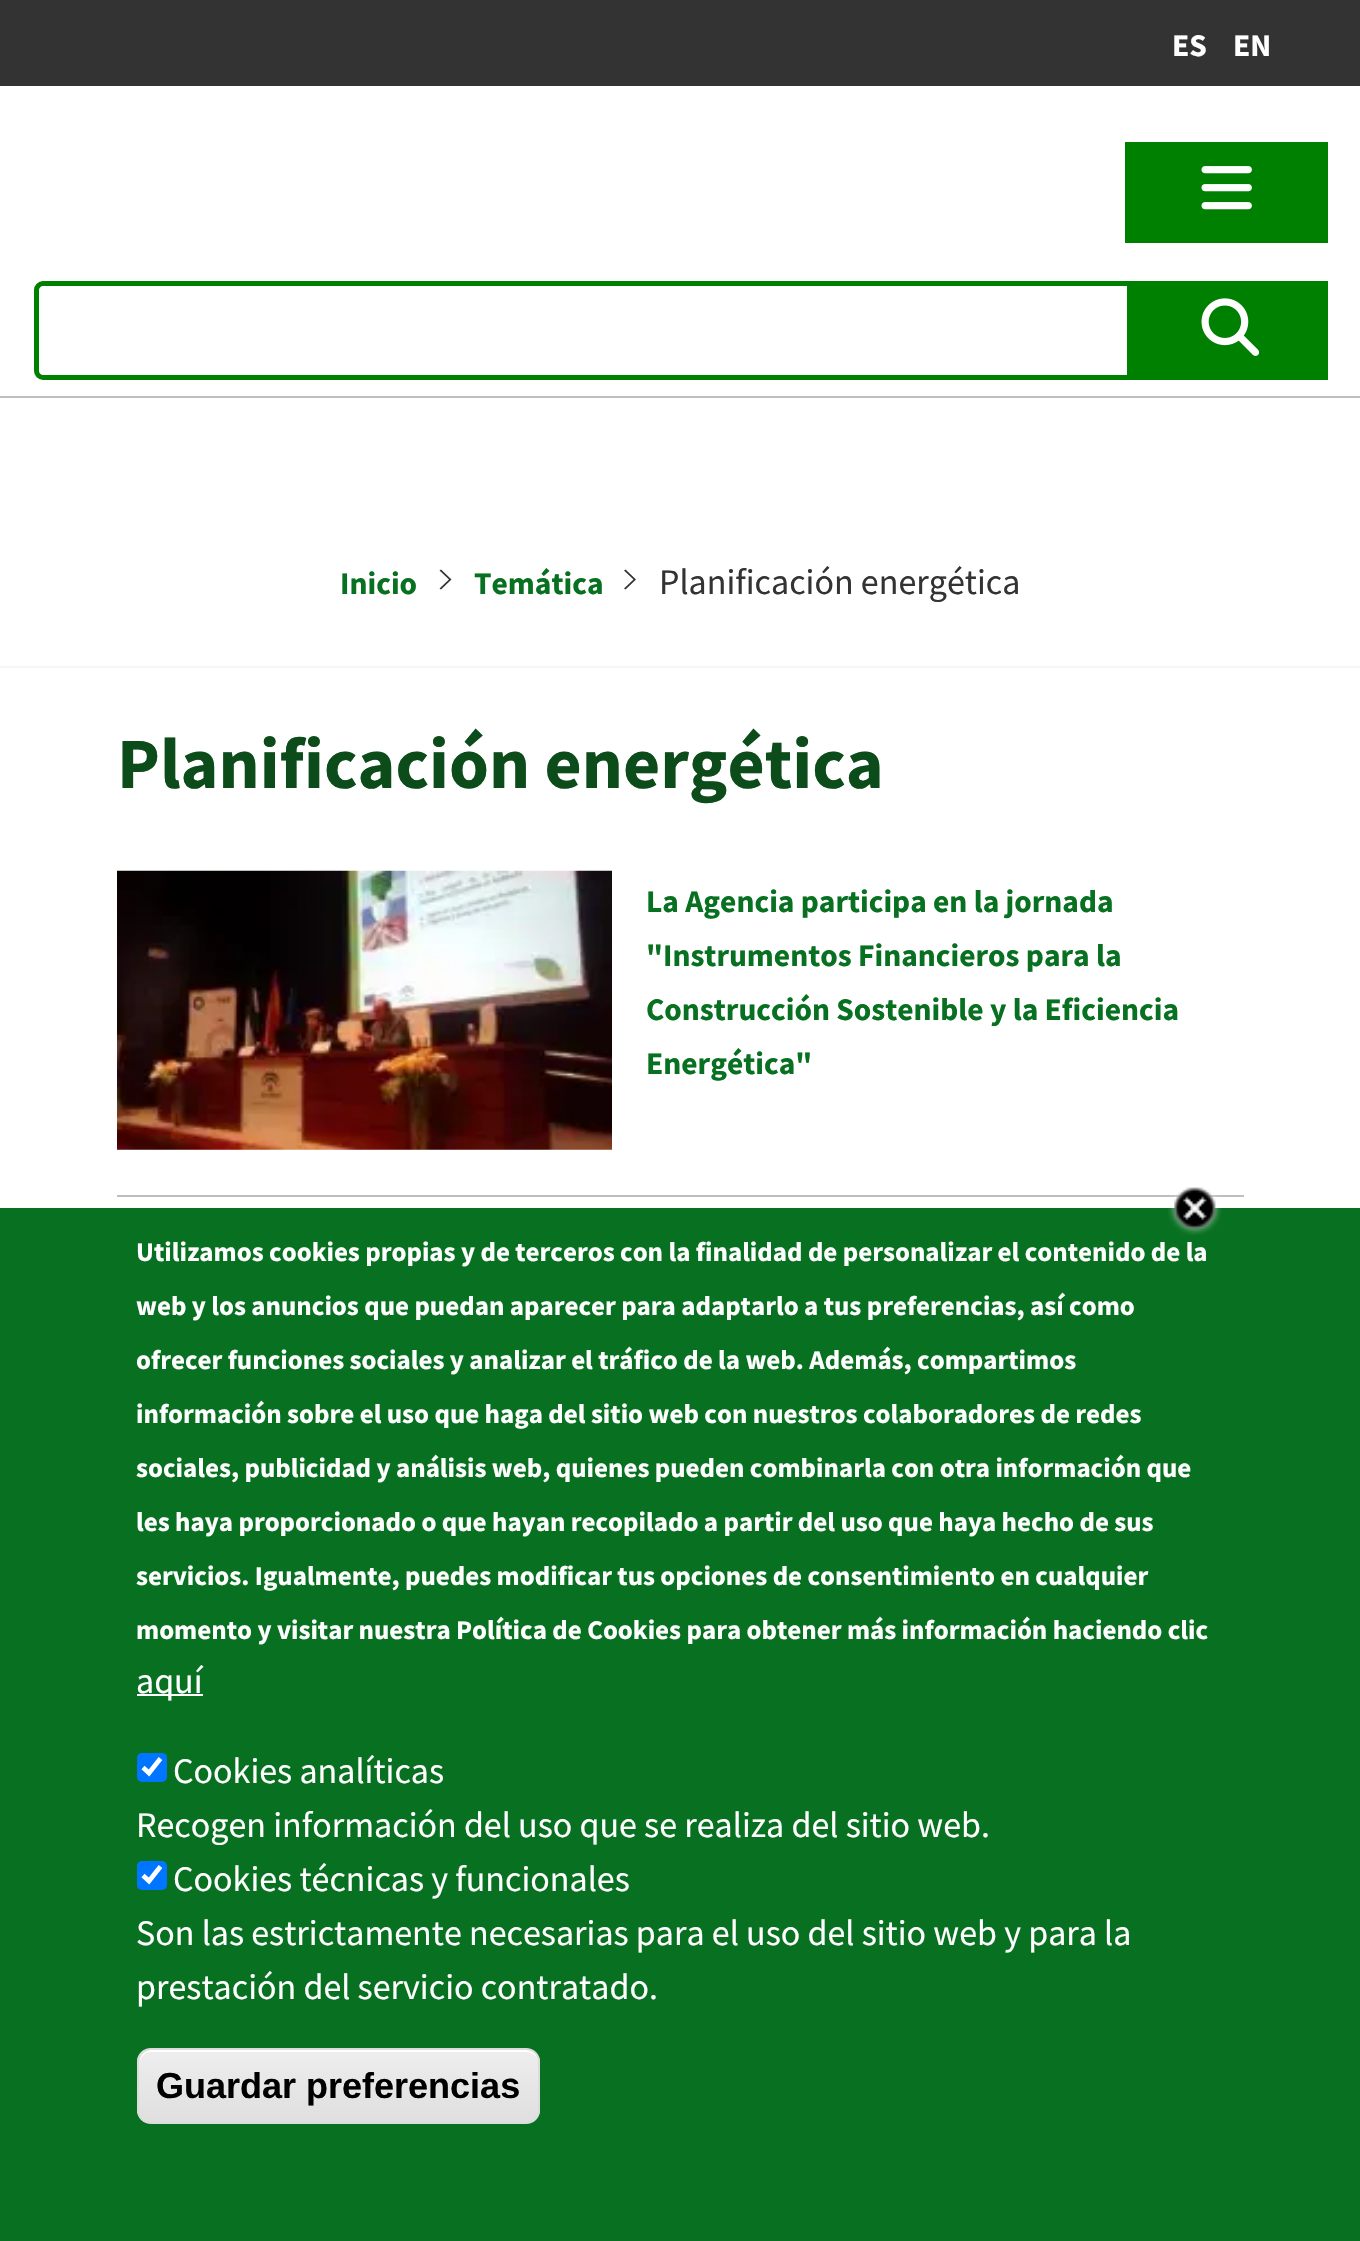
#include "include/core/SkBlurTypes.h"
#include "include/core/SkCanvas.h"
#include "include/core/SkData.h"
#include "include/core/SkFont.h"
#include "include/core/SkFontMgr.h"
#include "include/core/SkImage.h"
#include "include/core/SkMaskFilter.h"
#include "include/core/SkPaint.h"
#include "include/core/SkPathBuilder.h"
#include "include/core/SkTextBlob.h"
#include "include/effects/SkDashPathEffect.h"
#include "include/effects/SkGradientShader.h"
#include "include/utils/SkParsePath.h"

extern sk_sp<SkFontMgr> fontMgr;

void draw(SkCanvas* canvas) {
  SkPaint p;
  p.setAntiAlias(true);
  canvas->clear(SK_ColorWHITE);
  p.setColor(SkColorSetRGB(51, 51, 51));
  canvas->drawRect(SkRect::MakeLTRB(0, 0, 1360, 86), p);
  p.setColor(SkColorSetRGB(0, 128, 0));
  canvas->drawRect(SkRect::MakeLTRB(1125, 142, 1328, 243), p);
  canvas->drawImageRect(SkImages::DeferredFromEncodedData(SkData::MakeFromFileName("images/1.png")), SkRect::MakeLTRB(1201, 166, 1252, 210), SkSamplingOptions());
  p.setStyle(SkPaint::kStroke_Style);
  p.setStrokeWidth(5);
  canvas->drawPath(SkPathBuilder().moveTo(43, 283.5f).lineTo(1129.5f, 283.5f).lineTo(1129.5f, 377.5f).lineTo(43, 377.5f).cubicTo(39.5f, 377.5f, 36.5f, 374.5f, 36.5f, 371).lineTo(36.5f, 290).cubicTo(36.5f, 286.5f, 39.5f, 283.5f, 43, 283.5f).close().detach(), p);
  p.setStyle(SkPaint::kFill_Style);
  canvas->drawRect(SkRect::MakeLTRB(1132, 281, 1328, 380), p);
  canvas->drawImageRect(SkImages::DeferredFromEncodedData(SkData::MakeFromFileName("images/2.png")), SkRect::MakeLTRB(1201, 298, 1260, 356), SkSamplingOptions());
  p.setColor(SkColorSetRGB(190, 190, 190));
  canvas->drawRect(SkRect::MakeLTRB(0, 396, 1360, 398), p);
  p.setColor(SkColorSetRGB(246, 246, 246));
  canvas->drawRect(SkRect::MakeLTRB(0, 666, 1360, 668), p);
  p.setColor(SkColorSetRGB(51, 51, 51));
  canvas->drawPath(SkPathBuilder().moveTo(449, 579.5f).lineTo(439.5f, 570.5f).lineTo(441, 569.5f).lineTo(451.5f, 579.5f).lineTo(441, 589.5f).lineTo(439.5f, 588.5f).close().detach(), p);
  canvas->drawPath(SkPathBuilder().moveTo(633.5f, 579.5f).lineTo(624, 570.5f).lineTo(625.5f, 569.5f).lineTo(636, 579.5f).lineTo(625.5f, 589.5f).lineTo(624, 588.5f).close().detach(), p);
  p.setColor(SkColorSetRGB(190, 190, 190));
  canvas->drawRect(SkRect::MakeLTRB(117, 1195, 1244, 1197), p);
  canvas->drawImageRect(SkImages::DeferredFromEncodedData(SkData::MakeFromFileName("images/3.png")), SkRect::MakeLTRB(117, 870, 612, 1150), SkSamplingOptions());
  p.setColor(SkColorSetRGB(8, 112, 33));
  canvas->drawRect(SkRect::MakeLTRB(0, 1208, 1360, 2241), p);
  canvas->drawImageRect(SkImages::DeferredFromEncodedData(SkData::MakeFromFileName("images/4.png")), SkRect::MakeLTRB(1168, 1187, 1222, 1235), SkSamplingOptions());
  p.setColor(SK_ColorWHITE);
  canvas->drawRect(SkRect::MakeLTRB(137, 1694, 203, 1696), p);
  p.setColor(SkColorSetRGB(0, 117, 255));
  canvas->drawRoundRect(SkRect::MakeLTRB(137, 1753, 167, 1782), 5, 5, p);
  p.setStyle(SkPaint::kStroke_Style);
  p.setStrokeWidth(4.7f);
  p.setColor(SK_ColorWHITE);
  canvas->drawPath(SkPathBuilder().moveTo(143, 1767.5f).lineTo(149, 1773).lineTo(160.5f, 1758.5f).detach(), p);
  p.setStyle(SkPaint::kFill_Style);
  p.setColor(SkColorSetRGB(0, 117, 255));
  canvas->drawRoundRect(SkRect::MakeLTRB(137, 1861, 167, 1890), 5, 5, p);
  p.setStyle(SkPaint::kStroke_Style);
  p.setColor(SK_ColorWHITE);
  canvas->drawPath(SkPathBuilder().moveTo(143, 1875.5f).lineTo(149, 1881).lineTo(160.5f, 1866.5f).detach(), p);
  canvas->save();
  canvas->clipPath(SkPathBuilder().moveTo(151, 2048).lineTo(526, 2048).cubicTo(533.5f, 2048, 540, 2054.5f, 540, 2062).lineTo(540, 2110).cubicTo(540, 2117.5f, 533.5f, 2124, 526, 2124).lineTo(151, 2124).cubicTo(143.5f, 2124, 137, 2117.5f, 137, 2110).lineTo(137, 2062).cubicTo(137, 2054.5f, 143.5f, 2048, 151, 2048).close().detach(), true);
  p.setStyle(SkPaint::kFill_Style);
  {
    const SkColor colors[] = {SkColorSetRGB(237, 237, 237), SkColorSetRGB(223, 223, 223)};
    const float stops[] = {0.05f, 1};
    const SkPoint ends[] = {{339, 2050}, {339, 2122}};
    p.setShader(SkGradientShader::MakeLinear(ends, colors, stops, 2, SkTileMode::kClamp));
    p.setAlpha(255);
  }
  canvas->drawRect(SkRect::MakeLTRB(137, 2050, 540, 2122), p);
  canvas->restore();
  p.setShader(nullptr);
  p.setColor(SK_ColorWHITE);
  canvas->drawPath(SkPathBuilder().moveTo(151, 2052).lineTo(526, 2052).cubicTo(533, 2052, 538, 2057, 538, 2063).cubicTo(538, 2057, 536, 2052, 529, 2050).lineTo(149, 2050).cubicTo(142, 2052, 140, 2057, 140, 2063).cubicTo(140, 2057, 145, 2052, 151, 2052).close().detach(), p);
  p.setStyle(SkPaint::kStroke_Style);
  p.setStrokeWidth(2);
  p.setColor(SkColorSetRGB(220, 220, 220));
  canvas->drawRoundRect(SkRect::MakeLTRB(138, 2049, 539, 2123), 13, 13, p);
  SkFont font1(fontMgr->matchFamilyStyle("Source Sans Pro", SkFontStyle::Bold()), 31.5f);
  font1.setSubpixel(true);
  p.setStyle(SkPaint::kFill_Style);
  p.setColor(SK_ColorWHITE);
  canvas->drawString("ES", 1172, 56, font1, p);
  canvas->drawString("EN", 1233, 56, font1, p);
  p.setColor(SkColorSetRGB(8, 112, 33));
  canvas->drawString("Inicio", 340, 594, font1, p);
  canvas->drawString("Temática", 474, 594, font1, p);
  SkFont font2(fontMgr->matchFamilyStyle("Source Sans Pro", SkFontStyle::Normal()), 36);
  font2.setSubpixel(true);
  p.setColor(SkColorSetRGB(51, 51, 51));
  canvas->drawString("Planificación energética", 659, 594, font2, p);
  SkFont font3(fontMgr->matchFamilyStyle("Source Sans Pro", SkFontStyle::Bold()), 72);
  font3.setSubpixel(true);
  p.setColor(SkColorSetRGB(11, 76, 26));
  canvas->drawString("Planificación energética", 117, 788, font3, p);
  p.setColor(SkColorSetRGB(8, 112, 33));
  canvas->drawString("La Agencia participa en la jornada", 646, 912, font1, p);
  canvas->drawString("\"Instrumentos Financieros para la", 646, 966, font1, p);
  canvas->drawString("Construcción Sostenible y la Eficiencia", 646, 1020, font1, p);
  canvas->drawString("Energética\"", 646, 1074, font1, p);
  SkFont font4(fontMgr->matchFamilyStyle("Source Sans Pro", SkFontStyle::Bold()), 27);
  font4.setSubpixel(true);
  p.setColor(SK_ColorWHITE);
  canvas->drawString("Utilizamos cookies propias y de terceros con la finalidad de personalizar el contenido de la", 136, 1261, font4, p);
  canvas->drawString("web y los anuncios que puedan aparecer para adaptarlo a tus preferencias, así como", 136, 1315, font4, p);
  canvas->drawString("ofrecer funciones sociales y analizar el tráfico de la web. Además, compartimos", 136, 1369, font4, p);
  canvas->drawString("información sobre el uso que haga del sitio web con nuestros colaboradores de redes", 136, 1423, font4, p);
  canvas->drawString("sociales, publicidad y análisis web, quienes pueden combinarla con otra información que", 136, 1477, font4, p);
  canvas->drawString("les haya proporcionado o que hayan recopilado a partir del uso que haya hecho de sus", 136, 1531, font4, p);
  canvas->drawString("servicios. Igualmente, puedes modificar tus opciones de consentimiento en cualquier", 136, 1585, font4, p);
  canvas->drawString("momento y visitar nuestra Política de Cookies para obtener más información haciendo clic", 136, 1639, font4, p);
  canvas->drawString("aquí", 136, 1693, font2, p);
  canvas->drawString("Cookies analíticas", 173, 1783, font2, p);
  canvas->drawString("Recogen información del uso que se realiza del sitio web.", 136, 1837, font2, p);
  canvas->drawString("Cookies técnicas y funcionales", 173, 1891, font2, p);
  canvas->drawString("Son las estrictamente necesarias para el uso del sitio web y para la", 136, 1945, font2, p);
  canvas->drawString("prestación del servicio contratado.", 136, 1999, font2, p);
  SkFont font5(fontMgr->matchFamilyStyle("Liberation Sans", SkFontStyle::Bold()), 36);
  font5.setSubpixel(true);
  p.setColor(SK_ColorBLACK);
  canvas->drawString("Guardar preferencias", 156, 2098, font5, p);
}
